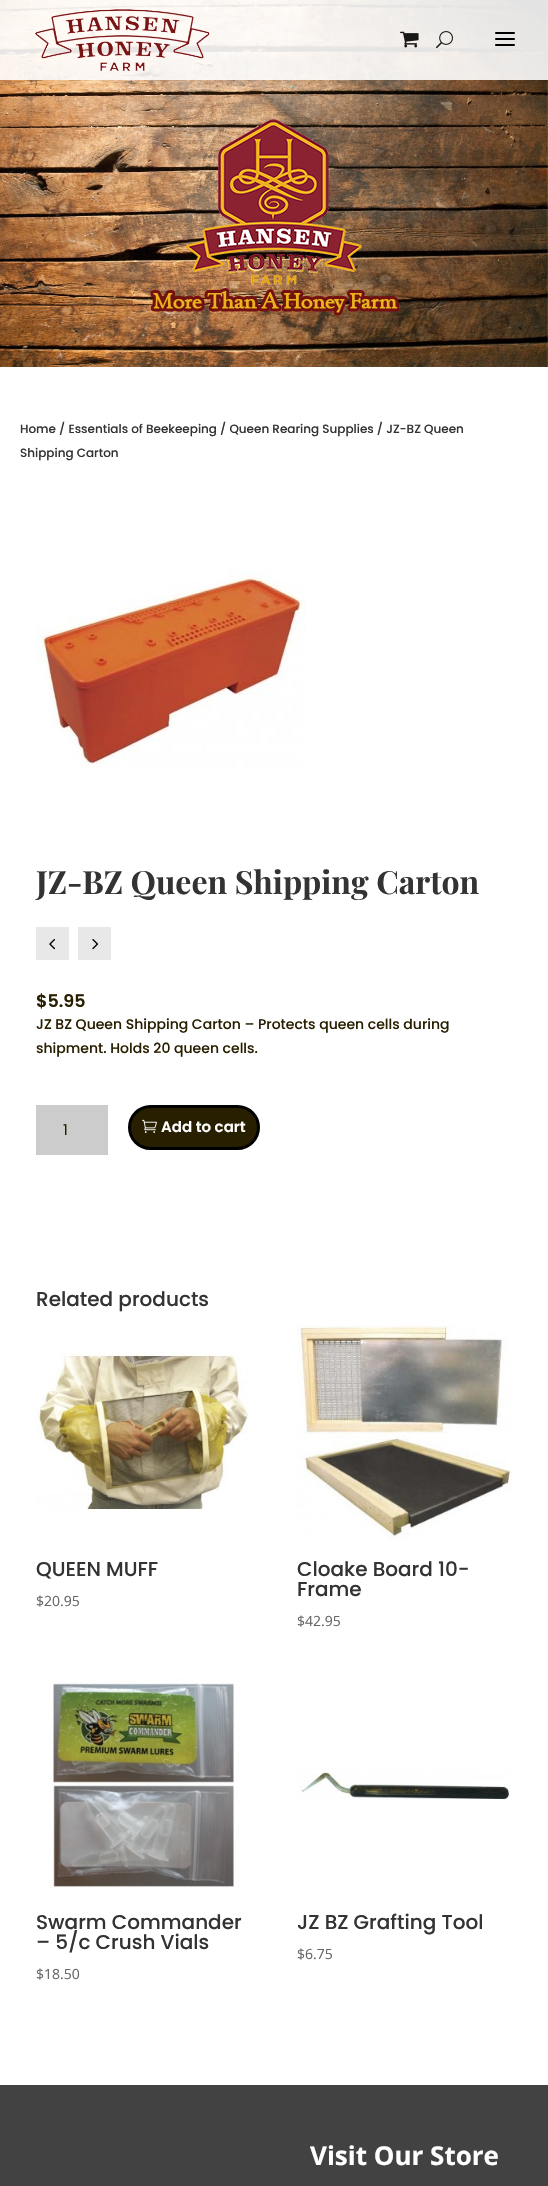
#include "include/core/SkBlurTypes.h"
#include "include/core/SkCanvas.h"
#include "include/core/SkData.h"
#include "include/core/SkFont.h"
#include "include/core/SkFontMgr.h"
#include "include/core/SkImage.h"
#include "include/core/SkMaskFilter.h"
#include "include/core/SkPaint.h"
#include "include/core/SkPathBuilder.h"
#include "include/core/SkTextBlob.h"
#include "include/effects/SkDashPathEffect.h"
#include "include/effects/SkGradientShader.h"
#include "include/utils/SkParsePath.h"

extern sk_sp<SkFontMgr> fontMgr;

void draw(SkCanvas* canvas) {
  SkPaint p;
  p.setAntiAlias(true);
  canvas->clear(SK_ColorWHITE);
  canvas->drawImageRect(SkImages::DeferredFromEncodedData(SkData::MakeFromFileName("images/5.png")), SkRect::MakeLTRB(0, 0, 548, 367), SkSamplingOptions());
  p.setColor(SkColorSetARGB(227, 255, 255, 255));
  canvas->drawRect(SkRect::MakeLTRB(0, 0, 548, 80), p);
  canvas->drawImageRect(SkImages::DeferredFromEncodedData(SkData::MakeFromFileName("images/1.png")), SkRect::MakeLTRB(35, 9, 210, 71), SkSamplingOptions());
  canvas->drawImageRect(SkImages::DeferredFromEncodedData(SkData::MakeFromFileName("images/2.png")), SkRect::MakeLTRB(400, 31, 419, 48), SkSamplingOptions());
  canvas->drawImageRect(SkImages::DeferredFromEncodedData(SkData::MakeFromFileName("images/3.png")), SkRect::MakeLTRB(436, 31, 453, 49), SkSamplingOptions());
  canvas->drawImageRect(SkImages::DeferredFromEncodedData(SkData::MakeFromFileName("images/4.png")), SkRect::MakeLTRB(495, 32, 515, 46), SkSamplingOptions());
  canvas->drawImageRect(SkImages::DeferredFromEncodedData(SkData::MakeFromFileName("images/6.png")), SkRect::MakeLTRB(150, 119, 399, 316), SkSamplingOptions());
  canvas->drawImageRect(SkImages::DeferredFromEncodedData(SkData::MakeFromFileName("images/7.png")), SkRect::MakeLTRB(36, 567, 306, 769), SkSamplingOptions());
  p.setColor(SkColorSetRGB(232, 232, 232));
  canvas->drawRect(SkRect::MakeLTRB(36, 927, 69, 960), p);
  canvas->drawImageRect(SkImages::DeferredFromEncodedData(SkData::MakeFromFileName("images/8.png")), SkRect::MakeLTRB(49, 939, 55, 950), SkSamplingOptions());
  canvas->drawRect(SkRect::MakeLTRB(78, 927, 111, 960), p);
  canvas->drawImageRect(SkImages::DeferredFromEncodedData(SkData::MakeFromFileName("images/9.png")), SkRect::MakeLTRB(92, 939, 99, 950), SkSamplingOptions());
  p.setColor(SkColorSetRGB(204, 204, 204));
  canvas->drawRect(SkRect::MakeLTRB(36, 1105, 108, 1155), p);
  p.setColor(SkColorSetRGB(40, 30, 0));
  canvas->drawRoundRect(SkRect::MakeLTRB(129.5f, 1106.5f, 258.5f, 1148.5f), 21, 21, p);
  p.setStyle(SkPaint::kStroke_Style);
  p.setStrokeWidth(3);
  p.setColor(SK_ColorBLACK);
  canvas->drawRoundRect(SkRect::MakeLTRB(129.5f, 1106.5f, 258.5f, 1148.5f), 21, 21, p);
  canvas->drawImageRect(SkImages::DeferredFromEncodedData(SkData::MakeFromFileName("images/10.png")), SkRect::MakeLTRB(142, 1119, 157, 1133), SkSamplingOptions());
  canvas->drawImageRect(SkImages::DeferredFromEncodedData(SkData::MakeFromFileName("images/11.png")), SkRect::MakeLTRB(36, 1351, 251, 1516), SkSamplingOptions());
  canvas->drawImageRect(SkImages::DeferredFromEncodedData(SkData::MakeFromFileName("images/12.png")), SkRect::MakeLTRB(297, 1325, 512, 1540), SkSamplingOptions());
  canvas->drawImageRect(SkImages::DeferredFromEncodedData(SkData::MakeFromFileName("images/13.png")), SkRect::MakeLTRB(49, 1678, 234, 1888), SkSamplingOptions());
  canvas->drawImageRect(SkImages::DeferredFromEncodedData(SkData::MakeFromFileName("images/14.png")), SkRect::MakeLTRB(297, 1768, 511, 1800), SkSamplingOptions());
  p.setStyle(SkPaint::kFill_Style);
  p.setColor(SkColorSetRGB(66, 66, 66));
  canvas->drawRect(SkRect::MakeLTRB(0, 2085, 548, 2186), p);
  SkFont font1(fontMgr->matchFamilyStyle("Poppins", SkFontStyle(500, SkFontStyle::kNormal_Width, SkFontStyle::kUpright_Slant)), 12);
  font1.setSubpixel(true);
  p.setColor(SkColorSetRGB(51, 51, 51));
  canvas->drawString("Home / Essentials of Beekeeping / Queen Rearing Supplies / JZ-BZ Queen", 20, 433, font1, p);
  canvas->drawString("Shipping Carton", 20, 457, font1, p);
  SkFont font2(fontMgr->matchFamilyStyle("Playfair Display", SkFontStyle::Bold()), 32);
  font2.setSubpixel(true);
  canvas->drawString("JZ-BZ Queen Shipping Carton", 36, 894, font2, p);
  SkFont font3(fontMgr->matchFamilyStyle("Poppins", SkFontStyle(600, SkFontStyle::kNormal_Width, SkFontStyle::kUpright_Slant)), 17.5f);
  font3.setSubpixel(true);
  p.setColor(SkColorSetRGB(40, 30, 0));
  canvas->drawString("$5.95", 36, 1007, font3, p);
  SkFont font4(fontMgr->matchFamilyStyle("Poppins", SkFontStyle(500, SkFontStyle::kNormal_Width, SkFontStyle::kUpright_Slant)), 14);
  font4.setSubpixel(true);
  canvas->drawString("JZ BZ Queen Shipping Carton – Protects queen cells during", 36, 1029, font4, p);
  canvas->drawString("shipment. Holds 20 queen cells.", 36, 1053, font4, p);
  SkFont font5(fontMgr->matchFamilyStyle("Poppins", SkFontStyle::Normal()), 15);
  font5.setSubpixel(true);
  canvas->drawString("1", 63, 1135, font5, p);
  SkFont font6(fontMgr->matchFamilyStyle("Poppins", SkFontStyle(600, SkFontStyle::kNormal_Width, SkFontStyle::kUpright_Slant)), 15);
  font6.setSubpixel(true);
  p.setColor(SK_ColorWHITE);
  canvas->drawString("Add to cart", 161, 1132, font6, p);
  SkFont font7(fontMgr->matchFamilyStyle("Poppins", SkFontStyle(500, SkFontStyle::kNormal_Width, SkFontStyle::kUpright_Slant)), 20);
  font7.setSubpixel(true);
  p.setColor(SkColorSetRGB(51, 51, 51));
  canvas->drawString("Related products", 36, 1306, font7, p);
  canvas->drawString("QUEEN MUFF", 36, 1576, font7, p);
  SkFont font8(fontMgr->matchFamilyStyle("Open Sans", SkFontStyle::Normal()), 14);
  font8.setSubpixel(true);
  p.setColor(SkColorSetRGB(102, 102, 102));
  canvas->drawString("$20.95", 36, 1606, font8, p);
  p.setColor(SkColorSetRGB(51, 51, 51));
  canvas->drawString("Cloake Board 10-", 297, 1576, font7, p);
  canvas->drawString("Frame", 297, 1596, font7, p);
  p.setColor(SkColorSetRGB(102, 102, 102));
  canvas->drawString("$42.95", 297, 1626, font8, p);
  p.setColor(SkColorSetRGB(51, 51, 51));
  canvas->drawString("Swarm Commander", 36, 1929, font7, p);
  canvas->drawString("– 5/c Crush Vials", 36, 1949, font7, p);
  p.setColor(SkColorSetRGB(102, 102, 102));
  canvas->drawString("$18.50", 36, 1979, font8, p);
  p.setColor(SkColorSetRGB(51, 51, 51));
  canvas->drawString("JZ BZ Grafting Tool", 297, 1929, font7, p);
  p.setColor(SkColorSetRGB(102, 102, 102));
  canvas->drawString("$6.75", 297, 1959, font8, p);
  SkFont font9(fontMgr->matchFamilyStyle("Open Sans", SkFontStyle::Bold()), 26);
  font9.setSubpixel(true);
  p.setColor(SK_ColorWHITE);
  canvas->drawString("Visit Our Store", 310, 2165, font9, p);
}
